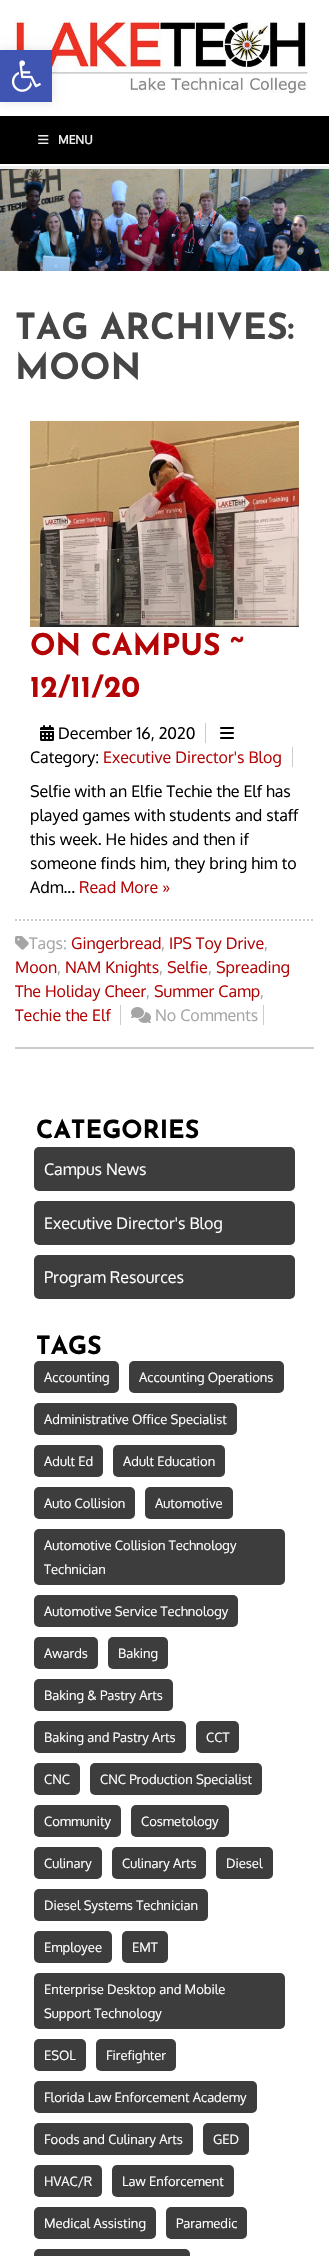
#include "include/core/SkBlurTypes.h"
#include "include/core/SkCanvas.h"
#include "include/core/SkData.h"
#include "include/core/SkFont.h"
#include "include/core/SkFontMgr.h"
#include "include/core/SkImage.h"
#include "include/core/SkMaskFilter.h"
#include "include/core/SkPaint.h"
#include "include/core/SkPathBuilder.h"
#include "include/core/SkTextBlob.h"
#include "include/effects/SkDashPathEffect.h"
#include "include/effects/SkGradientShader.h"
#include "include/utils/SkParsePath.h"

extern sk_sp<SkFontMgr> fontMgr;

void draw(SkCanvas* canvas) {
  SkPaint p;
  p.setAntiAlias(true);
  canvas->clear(SK_ColorWHITE);
  canvas->drawImageRect(SkImages::DeferredFromEncodedData(SkData::MakeFromFileName("images/1.png")), SkRect::MakeLTRB(15, 20, 308, 94), SkSamplingOptions());
  p.setColor(SK_ColorBLACK);
  canvas->drawRect(SkRect::MakeLTRB(0, 116, 329, 164), p);
  p.setColor(SkColorSetARGB(26, 0, 0, 0));
  p.setMaskFilter(SkMaskFilter::MakeBlur(kNormal_SkBlurStyle, 5));
  canvas->drawRect(SkRect::MakeLTRB(0, 50, 52, 102), p);
  p.setMaskFilter(nullptr);
  p.setColor(SkColorSetRGB(64, 84, 178));
  canvas->drawRect(SkRect::MakeLTRB(0, 50, 52, 102), p);
  canvas->drawImageRect(SkImages::DeferredFromEncodedData(SkData::MakeFromFileName("images/2.png")), SkRect::MakeLTRB(11, 60, 41, 92), SkSamplingOptions());
  canvas->drawImageRect(SkImages::DeferredFromEncodedData(SkData::MakeFromFileName("images/3.png")), SkRect::MakeLTRB(38, 135, 49, 144), SkSamplingOptions());
  p.setColor(SkColorSetRGB(238, 238, 238));
  canvas->drawRect(SkRect::MakeLTRB(0, 166, 329, 169), p);
  canvas->drawImageRect(SkImages::DeferredFromEncodedData(SkData::MakeFromFileName("images/4.png")), SkRect::MakeLTRB(0, 169, 329, 271), SkSamplingOptions());
  canvas->drawImageRect(SkImages::DeferredFromEncodedData(SkData::MakeFromFileName("images/5.png")), SkRect::MakeLTRB(30, 421, 299, 627), SkSamplingOptions());
  p.setColor(SkColorSetRGB(204, 204, 204));
  canvas->drawRect(SkRect::MakeLTRB(205, 723, 206, 743), p);
  canvas->drawImageRect(SkImages::DeferredFromEncodedData(SkData::MakeFromFileName("images/6.png")), SkRect::MakeLTRB(40, 725, 54, 741), SkSamplingOptions());
  canvas->drawRect(SkRect::MakeLTRB(292, 747, 293, 767), p);
  canvas->drawImageRect(SkImages::DeferredFromEncodedData(SkData::MakeFromFileName("images/7.png")), SkRect::MakeLTRB(220, 727, 234, 739), SkSamplingOptions());
  p.setStyle(SkPaint::kStroke_Style);
  p.setStrokeWidth(2);
  p.setPathEffect(SkDashPathEffect::Make({{2, 2}}, 0));
  canvas->drawPath(SkPathBuilder().moveTo(15, 920).lineTo(314, 920).detach(), p);
  p.setPathEffect(nullptr);
  p.setStyle(SkPaint::kFill_Style);
  p.setColor(SkColorSetRGB(205, 204, 204));
  canvas->drawRect(SkRect::MakeLTRB(15, 1047, 314, 1049), p);
  p.setColor(SkColorSetRGB(204, 204, 204));
  canvas->drawRect(SkRect::MakeLTRB(120, 1005, 121, 1025), p);
  canvas->drawImageRect(SkImages::DeferredFromEncodedData(SkData::MakeFromFileName("images/8.png")), SkRect::MakeLTRB(15, 936, 29, 950), SkSamplingOptions());
  canvas->drawRect(SkRect::MakeLTRB(263, 1005, 264, 1025), p);
  canvas->drawImageRect(SkImages::DeferredFromEncodedData(SkData::MakeFromFileName("images/9.png")), SkRect::MakeLTRB(131, 1007, 151, 1023), SkSamplingOptions());
  p.setColor(SkColorSetRGB(61, 61, 61));
  canvas->drawRoundRect(SkRect::MakeLTRB(34, 1147, 295, 1191), 5, 5, p);
  canvas->drawRoundRect(SkRect::MakeLTRB(34, 1201, 295, 1245), 5, 5, p);
  canvas->drawRoundRect(SkRect::MakeLTRB(34, 1255, 295, 1299), 5, 5, p);
  canvas->drawRoundRect(SkRect::MakeLTRB(34, 1361, 119, 1393), 5, 5, p);
  canvas->drawRoundRect(SkRect::MakeLTRB(129, 1361, 284, 1393), 5, 5, p);
  canvas->drawRoundRect(SkRect::MakeLTRB(34, 1403, 237, 1435), 5, 5, p);
  canvas->drawRoundRect(SkRect::MakeLTRB(34, 1445, 103, 1477), 5, 5, p);
  canvas->drawRoundRect(SkRect::MakeLTRB(113, 1445, 225, 1477), 5, 5, p);
  canvas->drawRoundRect(SkRect::MakeLTRB(34, 1487, 135, 1519), 5, 5, p);
  canvas->drawRoundRect(SkRect::MakeLTRB(145, 1487, 233, 1519), 5, 5, p);
  canvas->drawRoundRect(SkRect::MakeLTRB(34, 1529, 285, 1585), 5, 5, p);
  canvas->drawRoundRect(SkRect::MakeLTRB(34, 1595, 238, 1627), 5, 5, p);
  canvas->drawRoundRect(SkRect::MakeLTRB(34, 1637, 98, 1669), 5, 5, p);
  canvas->drawRoundRect(SkRect::MakeLTRB(108, 1637, 168, 1669), 5, 5, p);
  canvas->drawRoundRect(SkRect::MakeLTRB(34, 1679, 173, 1711), 5, 5, p);
  canvas->drawRoundRect(SkRect::MakeLTRB(34, 1721, 186, 1753), 5, 5, p);
  canvas->drawRoundRect(SkRect::MakeLTRB(196, 1721, 239, 1753), 5, 5, p);
  canvas->drawRoundRect(SkRect::MakeLTRB(34, 1763, 80, 1795), 5, 5, p);
  canvas->drawRoundRect(SkRect::MakeLTRB(90, 1763, 262, 1795), 5, 5, p);
  canvas->drawRoundRect(SkRect::MakeLTRB(34, 1805, 121, 1837), 5, 5, p);
  canvas->drawRoundRect(SkRect::MakeLTRB(131, 1805, 229, 1837), 5, 5, p);
  canvas->drawRoundRect(SkRect::MakeLTRB(34, 1847, 102, 1879), 5, 5, p);
  canvas->drawRoundRect(SkRect::MakeLTRB(112, 1847, 206, 1879), 5, 5, p);
  canvas->drawRoundRect(SkRect::MakeLTRB(216, 1847, 273, 1879), 5, 5, p);
  canvas->drawRoundRect(SkRect::MakeLTRB(34, 1889, 208, 1921), 5, 5, p);
  canvas->drawRoundRect(SkRect::MakeLTRB(34, 1931, 112, 1963), 5, 5, p);
  canvas->drawRoundRect(SkRect::MakeLTRB(122, 1931, 168, 1963), 5, 5, p);
  canvas->drawRoundRect(SkRect::MakeLTRB(34, 1973, 285, 2029), 5, 5, p);
  canvas->drawRoundRect(SkRect::MakeLTRB(34, 2039, 86, 2071), 5, 5, p);
  canvas->drawRoundRect(SkRect::MakeLTRB(96, 2039, 176, 2071), 5, 5, p);
  canvas->drawRoundRect(SkRect::MakeLTRB(34, 2081, 257, 2113), 5, 5, p);
  canvas->drawRoundRect(SkRect::MakeLTRB(34, 2123, 193, 2155), 5, 5, p);
  canvas->drawRoundRect(SkRect::MakeLTRB(203, 2123, 249, 2155), 5, 5, p);
  canvas->drawRoundRect(SkRect::MakeLTRB(34, 2165, 102, 2197), 5, 5, p);
  canvas->drawRoundRect(SkRect::MakeLTRB(112, 2165, 234, 2197), 5, 5, p);
  canvas->drawRoundRect(SkRect::MakeLTRB(34, 2207, 156, 2239), 5, 5, p);
  canvas->drawRoundRect(SkRect::MakeLTRB(166, 2207, 247, 2239), 5, 5, p);
  canvas->drawRoundRect(SkRect::MakeLTRB(34, 2249, 190, 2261), 5, 5, p);
  SkFont font1(fontMgr->matchFamilyStyle("Oxygen", SkFontStyle::Bold()), 12);
  font1.setSubpixel(true);
  p.setColor(SkColorSetRGB(238, 238, 238));
  canvas->drawString("MENU", 58, 144, font1, p);
  SkFont font2(fontMgr->matchFamilyStyle("Josefin Sans", SkFontStyle(100, SkFontStyle::kNormal_Width, SkFontStyle::kUpright_Slant)), 36);
  font2.setSubpixel(true);
  p.setColor(SkColorSetRGB(69, 69, 69));
  canvas->drawString("TAG ARCHIVES:", 15, 339, font2, p);
  canvas->drawString("MOON", 15, 379, font2, p);
  SkFont font3(fontMgr->matchFamilyStyle("Josefin Sans", SkFontStyle(100, SkFontStyle::kNormal_Width, SkFontStyle::kUpright_Slant)), 30);
  font3.setSubpixel(true);
  p.setColor(SkColorSetRGB(179, 5, 6));
  canvas->drawString("ON CAMPUS ~", 30, 655, font3, p);
  canvas->drawString("12/11/20", 30, 697, font3, p);
  SkFont font4(fontMgr->matchFamilyStyle("Oxygen", SkFontStyle::Normal()), 16);
  font4.setSubpixel(true);
  p.setColor(SK_ColorBLACK);
  canvas->drawString("December 16, 2020", 58, 739, font4, p);
  canvas->drawString("Category:", 30, 763, font4, p);
  p.setColor(SkColorSetRGB(179, 5, 6));
  canvas->drawString("Executive Director's Blog", 103, 763, font4, p);
  p.setColor(SK_ColorBLACK);
  canvas->drawString("Selfie with an Elfie Techie the Elf has", 30, 797, font4, p);
  canvas->drawString("played games with students and staff", 30, 821, font4, p);
  canvas->drawString("this week. He hides and then if", 30, 845, font4, p);
  canvas->drawString("someone finds him, they bring him to", 30, 869, font4, p);
  canvas->drawString("Adm...", 30, 893, font4, p);
  p.setColor(SkColorSetRGB(179, 5, 6));
  canvas->drawString("Read More »", 79, 893, font4, p);
  p.setColor(SkColorSetRGB(165, 165, 165));
  canvas->drawString("Tags:", 29, 949, font4, p);
  p.setColor(SkColorSetRGB(179, 5, 6));
  canvas->drawString("Gingerbread", 71, 949, font4, p);
  p.setColor(SkColorSetRGB(165, 165, 165));
  canvas->drawString(",", 161, 949, font4, p);
  p.setColor(SkColorSetRGB(179, 5, 6));
  canvas->drawString("IPS Toy Drive", 169, 949, font4, p);
  p.setColor(SkColorSetRGB(165, 165, 165));
  canvas->drawString(",", 264, 949, font4, p);
  p.setColor(SkColorSetRGB(179, 5, 6));
  canvas->drawString("Moon", 15, 973, font4, p);
  p.setColor(SkColorSetRGB(165, 165, 165));
  canvas->drawString(",", 57, 973, font4, p);
  p.setColor(SkColorSetRGB(179, 5, 6));
  canvas->drawString("NAM Knights", 65, 973, font4, p);
  p.setColor(SkColorSetRGB(165, 165, 165));
  canvas->drawString(",", 159, 973, font4, p);
  p.setColor(SkColorSetRGB(179, 5, 6));
  canvas->drawString("Selfie", 167, 973, font4, p);
  p.setColor(SkColorSetRGB(165, 165, 165));
  canvas->drawString(",", 208, 973, font4, p);
  p.setColor(SkColorSetRGB(179, 5, 6));
  canvas->drawString("Spreading", 216, 973, font4, p);
  canvas->drawString("The Holiday Cheer", 15, 997, font4, p);
  p.setColor(SkColorSetRGB(165, 165, 165));
  canvas->drawString(",", 146, 997, font4, p);
  p.setColor(SkColorSetRGB(179, 5, 6));
  canvas->drawString("Summer Camp", 154, 997, font4, p);
  p.setColor(SkColorSetRGB(165, 165, 165));
  canvas->drawString(",", 260, 997, font4, p);
  p.setColor(SkColorSetRGB(179, 5, 6));
  canvas->drawString("Techie the Elf", 15, 1021, font4, p);
  p.setColor(SkColorSetRGB(165, 165, 165));
  canvas->drawString("No Comments", 155, 1021, font4, p);
  SkFont font5(fontMgr->matchFamilyStyle("Josefin Sans", SkFontStyle(100, SkFontStyle::kNormal_Width, SkFontStyle::kUpright_Slant)), 25);
  font5.setSubpixel(true);
  p.setColor(SK_ColorBLACK);
  canvas->drawString("CATEGORIES", 36, 1138, font5, p);
  p.setColor(SK_ColorWHITE);
  canvas->drawString("Campus News", 44, 1175, font4, p);
  canvas->drawString("Executive Director's Blog", 44, 1229, font4, p);
  canvas->drawString("Program Resources", 44, 1283, font4, p);
  p.setColor(SK_ColorBLACK);
  canvas->drawString("TAGS", 36, 1354, font5, p);
  SkFont font6(fontMgr->matchFamilyStyle("Oxygen", SkFontStyle::Normal()), 13);
  font6.setSubpixel(true);
  p.setColor(SK_ColorWHITE);
  canvas->drawString("Accounting", 44, 1382, font6, p);
  canvas->drawString("Accounting Operations", 139, 1382, font6, p);
  canvas->drawString("Administrative Office Specialist", 44, 1424, font6, p);
  canvas->drawString("Adult Ed", 44, 1466, font6, p);
  canvas->drawString("Adult Education", 123, 1466, font6, p);
  canvas->drawString("Auto Collision", 44, 1508, font6, p);
  canvas->drawString("Automotive", 155, 1508, font6, p);
  canvas->drawString("Automotive Collision Technology", 44, 1550, font6, p);
  canvas->drawString("Technician", 44, 1574, font6, p);
  canvas->drawString("Automotive Service Technology", 44, 1616, font6, p);
  canvas->drawString("Awards", 44, 1658, font6, p);
  canvas->drawString("Baking", 118, 1658, font6, p);
  canvas->drawString("Baking & Pastry Arts", 44, 1700, font6, p);
  canvas->drawString("Baking and Pastry Arts", 44, 1742, font6, p);
  canvas->drawString("CCT", 206, 1742, font6, p);
  canvas->drawString("CNC", 44, 1784, font6, p);
  canvas->drawString("CNC Production Specialist", 100, 1784, font6, p);
  canvas->drawString("Community", 44, 1826, font6, p);
  canvas->drawString("Cosmetology", 141, 1826, font6, p);
  canvas->drawString("Culinary", 44, 1868, font6, p);
  canvas->drawString("Culinary Arts", 122, 1868, font6, p);
  canvas->drawString("Diesel", 226, 1868, font6, p);
  canvas->drawString("Diesel Systems Technician", 44, 1910, font6, p);
  canvas->drawString("Employee", 44, 1952, font6, p);
  canvas->drawString("EMT", 132, 1952, font6, p);
  canvas->drawString("Enterprise Desktop and Mobile", 44, 1994, font6, p);
  canvas->drawString("Support Technology", 44, 2018, font6, p);
  canvas->drawString("ESOL", 44, 2060, font6, p);
  canvas->drawString("Firefighter", 106, 2060, font6, p);
  canvas->drawString("Florida Law Enforcement Academy", 44, 2102, font6, p);
  canvas->drawString("Foods and Culinary Arts", 44, 2144, font6, p);
  canvas->drawString("GED", 213, 2144, font6, p);
  canvas->drawString("HVAC/R", 44, 2186, font6, p);
  canvas->drawString("Law Enforcement", 122, 2186, font6, p);
  canvas->drawString("Medical Assisting", 44, 2228, font6, p);
  canvas->drawString("Paramedic", 176, 2228, font6, p);
}
